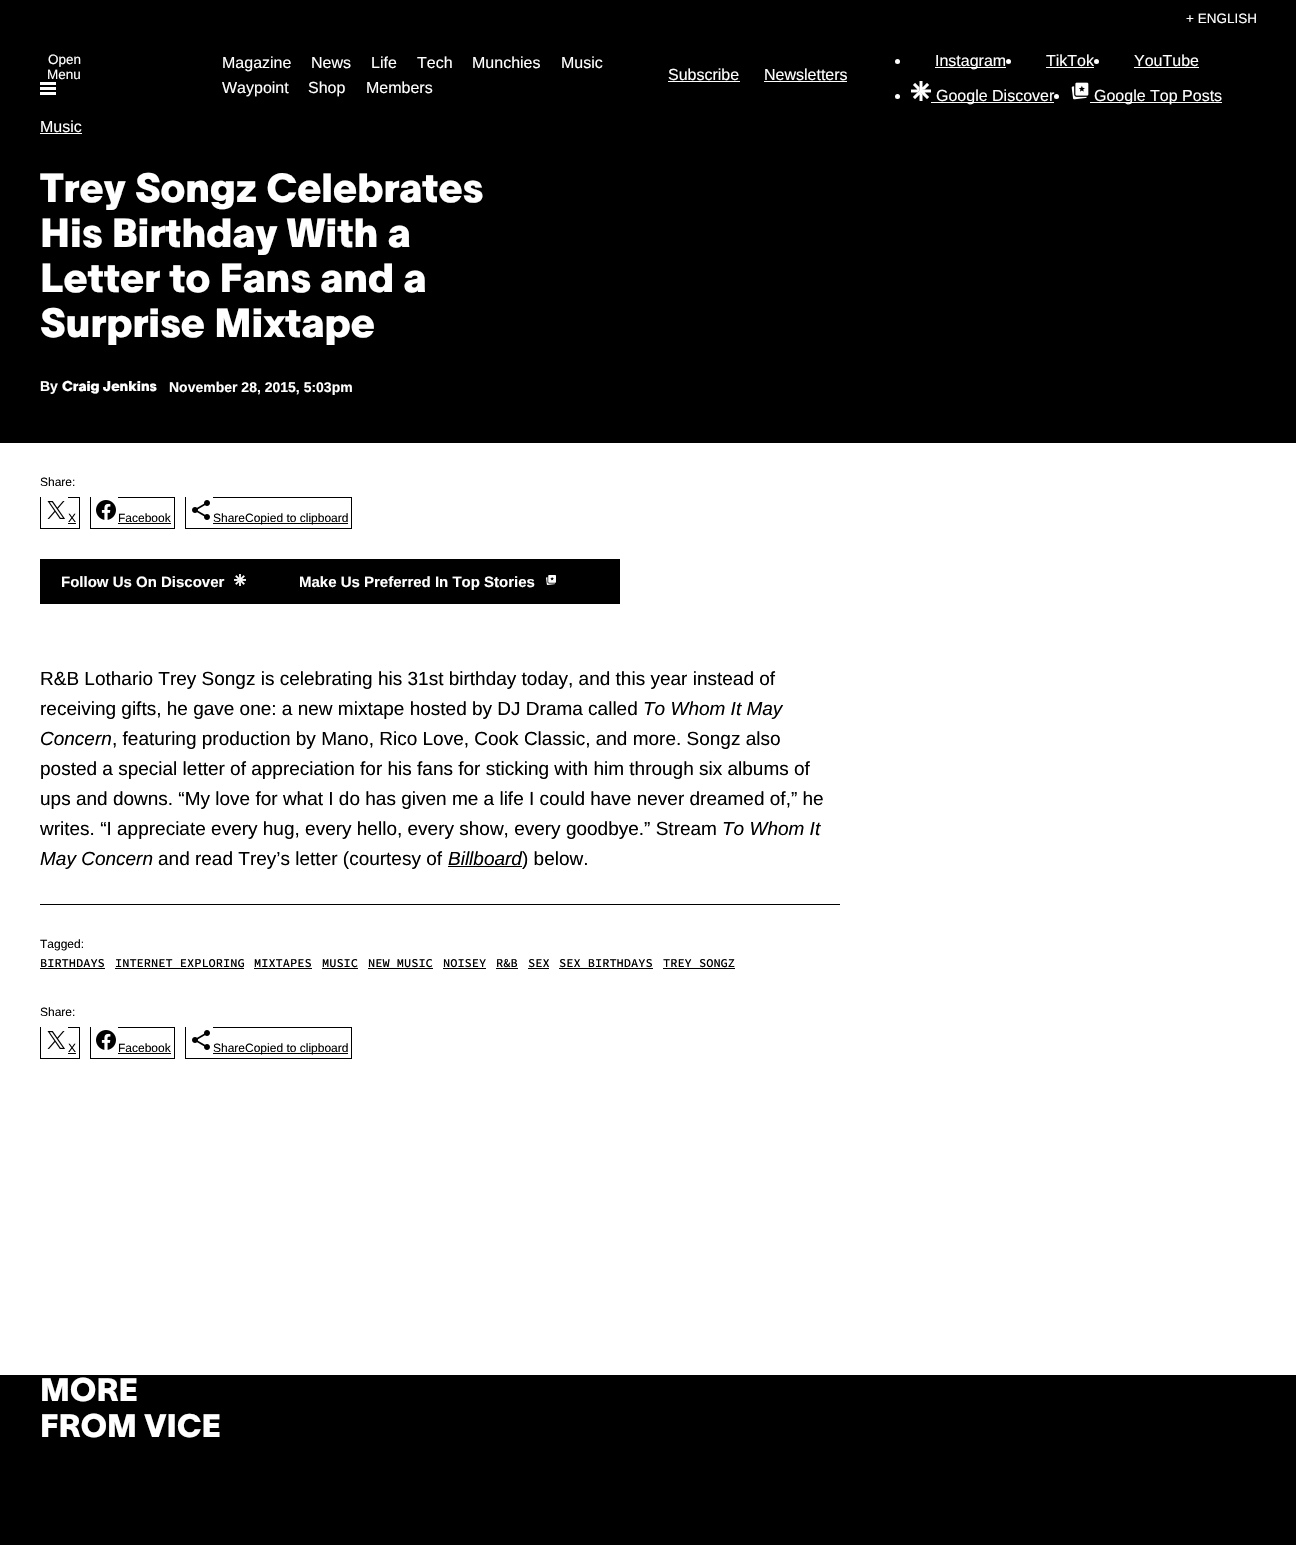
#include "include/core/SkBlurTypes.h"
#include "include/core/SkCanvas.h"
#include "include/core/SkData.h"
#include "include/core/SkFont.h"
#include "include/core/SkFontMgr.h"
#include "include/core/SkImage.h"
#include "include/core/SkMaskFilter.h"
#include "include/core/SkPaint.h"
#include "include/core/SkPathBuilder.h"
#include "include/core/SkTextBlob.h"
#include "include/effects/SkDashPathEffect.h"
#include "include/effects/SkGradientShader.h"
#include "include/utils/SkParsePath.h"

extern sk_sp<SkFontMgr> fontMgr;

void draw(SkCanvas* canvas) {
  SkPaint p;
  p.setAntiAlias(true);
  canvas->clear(SK_ColorWHITE);
  p.setColor(SK_ColorBLACK);
  canvas->drawRect(SkRect::MakeLTRB(0, 0, 1296, 443), p);
  canvas->drawImageRect(SkImages::DeferredFromEncodedData(SkData::MakeFromFileName("images/1.png")), SkRect::MakeLTRB(40, 82, 56, 95), SkSamplingOptions());
  p.setColor(SK_ColorWHITE);
  canvas->drawRect(SkRect::MakeLTRB(668, 81, 740, 82), p);
  canvas->drawRect(SkRect::MakeLTRB(764, 81, 847, 82), p);
  canvas->drawCircle(897.5f, 61.5f, 2.5f, p);
  canvas->drawRect(SkRect::MakeLTRB(935, 67, 1006, 68), p);
  canvas->drawCircle(1008.5f, 61.5f, 2.5f, p);
  canvas->drawRect(SkRect::MakeLTRB(1046, 67, 1094, 68), p);
  canvas->drawCircle(1096.5f, 61.5f, 2.5f, p);
  canvas->drawRect(SkRect::MakeLTRB(1134, 67, 1199, 68), p);
  canvas->drawCircle(897.5f, 96.5f, 2.5f, p);
  canvas->drawImageRect(SkImages::DeferredFromEncodedData(SkData::MakeFromFileName("images/2.png")), SkRect::MakeLTRB(911, 81, 931, 101), SkSamplingOptions());
  canvas->drawRect(SkRect::MakeLTRB(931, 102, 1054, 103), p);
  canvas->drawCircle(1056.5f, 96.5f, 2.5f, p);
  canvas->drawImageRect(SkImages::DeferredFromEncodedData(SkData::MakeFromFileName("images/3.png")), SkRect::MakeLTRB(1071, 82, 1089, 100), SkSamplingOptions());
  canvas->drawRect(SkRect::MakeLTRB(1090, 102, 1222, 103), p);
  canvas->drawRect(SkRect::MakeLTRB(40, 133, 82, 134), p);
  p.setStyle(SkPaint::kStroke_Style);
  p.setStrokeWidth(1);
  p.setColor(SK_ColorBLACK);
  canvas->drawRect(SkRect::MakeLTRB(40.5f, 497.5f, 79.5f, 528.5f), p);
  canvas->drawImageRect(SkImages::DeferredFromEncodedData(SkData::MakeFromFileName("images/4.png")), SkRect::MakeLTRB(47, 501, 65, 519), SkSamplingOptions());
  p.setStyle(SkPaint::kFill_Style);
  p.setColor(SK_ColorWHITE);
  canvas->drawRect(SkRect::MakeLTRB(41, 497, 68, 498), p);
  p.setColor(SK_ColorBLACK);
  canvas->drawRect(SkRect::MakeLTRB(68, 523, 76, 524), p);
  p.setStyle(SkPaint::kStroke_Style);
  canvas->drawRect(SkRect::MakeLTRB(90.5f, 497.5f, 174.5f, 528.5f), p);
  canvas->drawImageRect(SkImages::DeferredFromEncodedData(SkData::MakeFromFileName("images/5.png")), SkRect::MakeLTRB(96, 500, 116, 520), SkSamplingOptions());
  p.setStyle(SkPaint::kFill_Style);
  p.setColor(SK_ColorWHITE);
  canvas->drawRect(SkRect::MakeLTRB(91, 497, 118, 498), p);
  p.setColor(SK_ColorBLACK);
  canvas->drawRect(SkRect::MakeLTRB(118, 523, 171, 524), p);
  p.setStyle(SkPaint::kStroke_Style);
  canvas->drawRect(SkRect::MakeLTRB(185.5f, 497.5f, 351.5f, 528.5f), p);
  canvas->drawImageRect(SkImages::DeferredFromEncodedData(SkData::MakeFromFileName("images/6.png")), SkRect::MakeLTRB(192, 500, 210, 520), SkSamplingOptions());
  p.setStyle(SkPaint::kFill_Style);
  p.setColor(SK_ColorWHITE);
  canvas->drawRect(SkRect::MakeLTRB(186, 497, 213, 498), p);
  p.setColor(SK_ColorBLACK);
  canvas->drawRect(SkRect::MakeLTRB(213, 523, 348, 524), p);
  canvas->drawRect(SkRect::MakeLTRB(40, 559, 620, 604), p);
  canvas->drawImageRect(SkImages::DeferredFromEncodedData(SkData::MakeFromFileName("images/7.png")), SkRect::MakeLTRB(234, 574, 246, 586), SkSamplingOptions());
  canvas->drawImageRect(SkImages::DeferredFromEncodedData(SkData::MakeFromFileName("images/8.png")), SkRect::MakeLTRB(546, 575, 556, 585), SkSamplingOptions());
  canvas->drawRect(SkRect::MakeLTRB(448, 866, 522, 867), p);
  canvas->drawRect(SkRect::MakeLTRB(40, 904, 840, 905), p);
  canvas->drawRect(SkRect::MakeLTRB(40, 968, 105, 969), p);
  canvas->drawRect(SkRect::MakeLTRB(115, 968, 244, 969), p);
  canvas->drawRect(SkRect::MakeLTRB(254, 968, 312, 969), p);
  canvas->drawRect(SkRect::MakeLTRB(322, 968, 358, 969), p);
  canvas->drawRect(SkRect::MakeLTRB(368, 968, 433, 969), p);
  canvas->drawRect(SkRect::MakeLTRB(443, 968, 486, 969), p);
  canvas->drawRect(SkRect::MakeLTRB(496, 968, 518, 969), p);
  canvas->drawRect(SkRect::MakeLTRB(528, 968, 549, 969), p);
  canvas->drawRect(SkRect::MakeLTRB(559, 968, 653, 969), p);
  canvas->drawRect(SkRect::MakeLTRB(663, 968, 735, 969), p);
  p.setStyle(SkPaint::kStroke_Style);
  canvas->drawRect(SkRect::MakeLTRB(40.5f, 1027.5f, 79.5f, 1058.5f), p);
  canvas->drawImageRect(SkImages::DeferredFromEncodedData(SkData::MakeFromFileName("images/4.png")), SkRect::MakeLTRB(47, 1031, 65, 1049), SkSamplingOptions());
  p.setStyle(SkPaint::kFill_Style);
  p.setColor(SK_ColorWHITE);
  canvas->drawRect(SkRect::MakeLTRB(41, 1027, 68, 1028), p);
  p.setColor(SK_ColorBLACK);
  canvas->drawRect(SkRect::MakeLTRB(68, 1053, 76, 1054), p);
  p.setStyle(SkPaint::kStroke_Style);
  canvas->drawRect(SkRect::MakeLTRB(90.5f, 1027.5f, 174.5f, 1058.5f), p);
  canvas->drawImageRect(SkImages::DeferredFromEncodedData(SkData::MakeFromFileName("images/5.png")), SkRect::MakeLTRB(96, 1030, 116, 1050), SkSamplingOptions());
  p.setStyle(SkPaint::kFill_Style);
  p.setColor(SK_ColorWHITE);
  canvas->drawRect(SkRect::MakeLTRB(91, 1027, 118, 1028), p);
  p.setColor(SK_ColorBLACK);
  canvas->drawRect(SkRect::MakeLTRB(118, 1053, 171, 1054), p);
  p.setStyle(SkPaint::kStroke_Style);
  canvas->drawRect(SkRect::MakeLTRB(185.5f, 1027.5f, 351.5f, 1058.5f), p);
  canvas->drawImageRect(SkImages::DeferredFromEncodedData(SkData::MakeFromFileName("images/6.png")), SkRect::MakeLTRB(192, 1030, 210, 1050), SkSamplingOptions());
  p.setStyle(SkPaint::kFill_Style);
  p.setColor(SK_ColorWHITE);
  canvas->drawRect(SkRect::MakeLTRB(186, 1027, 213, 1028), p);
  p.setColor(SK_ColorBLACK);
  canvas->drawRect(SkRect::MakeLTRB(213, 1053, 348, 1054), p);
  canvas->drawRect(SkRect::MakeLTRB(0, 1375, 1296, 1545), p);
  SkFont font1(fontMgr->matchFamilyStyle("Liberation Sans", SkFontStyle::Normal()), 13.5f);
  font1.setSubpixel(true);
  p.setColor(SK_ColorWHITE);
  canvas->drawString("+ ENGLISH", 1186, 23, font1, p);
  canvas->drawString("Open", 48, 64, font1, p);
  canvas->drawString("Menu", 47, 79, font1, p);
  SkFont font2(fontMgr->matchFamilyStyle("Liberation Sans", SkFontStyle::Normal()), 16);
  font2.setSubpixel(true);
  canvas->drawString("Magazine", 222, 68, font2, p);
  canvas->drawString("News", 311, 68, font2, p);
  canvas->drawString("Life", 371, 68, font2, p);
  canvas->drawString("Tech", 417, 68, font2, p);
  canvas->drawString("Munchies", 472, 68, font2, p);
  canvas->drawString("Music", 561, 68, font2, p);
  canvas->drawString("Waypoint", 222, 93, font2, p);
  canvas->drawString("Shop", 308, 93, font2, p);
  canvas->drawString("Members", 366, 93, font2, p);
  canvas->drawString("Subscribe", 668, 80, font2, p);
  canvas->drawString("Newsletters", 764, 80, font2, p);
  canvas->drawString("Instagram", 935, 66, font2, p);
  canvas->drawString("TikTok", 1046, 66, font2, p);
  canvas->drawString("YouTube", 1134, 66, font2, p);
  canvas->drawString("Google Discover", 936, 101, font2, p);
  canvas->drawString("Google Top Posts", 1094, 101, font2, p);
  canvas->drawString("Music", 40, 132, font2, p);
  SkFont font3(fontMgr->matchFamilyStyle("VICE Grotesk", SkFontStyle(900, SkFontStyle::kNormal_Width, SkFontStyle::kUpright_Slant)), 40);
  font3.setSubpixel(true);
  canvas->drawString("Trey Songz Celebrates", 40, 202, font3, p);
  canvas->drawString("His Birthday With a", 40, 247, font3, p);
  canvas->drawString("Letter to Fans and a", 40, 292, font3, p);
  canvas->drawString("Surprise Mixtape", 40, 337, font3, p);
  SkFont font4(fontMgr->matchFamilyStyle("Liberation Sans", SkFontStyle::Bold()), 14);
  font4.setSubpixel(true);
  canvas->drawString("By", 40, 391, font4, p);
  SkFont font5(fontMgr->matchFamilyStyle("VICE Grotesk", SkFontStyle(900, SkFontStyle::kNormal_Width, SkFontStyle::kUpright_Slant)), 14);
  font5.setSubpixel(true);
  canvas->drawString("Craig Jenkins", 62, 391, font5, p);
  canvas->drawString("November 28, 2015, 5:03pm", 169, 392, font4, p);
  SkFont font6(fontMgr->matchFamilyStyle("Liberation Sans", SkFontStyle::Normal()), 12);
  font6.setSubpixel(true);
  p.setColor(SK_ColorBLACK);
  canvas->drawString("Share:", 40, 486, font6, p);
  canvas->drawString("X", 68, 522, font6, p);
  canvas->drawString("Facebook", 118, 522, font6, p);
  canvas->drawString("ShareCopied to clipboard", 213, 522, font6, p);
  SkFont font7(fontMgr->matchFamilyStyle("Liberation Sans", SkFontStyle::Bold()), 15);
  font7.setSubpixel(true);
  p.setColor(SK_ColorWHITE);
  canvas->drawString("Follow Us On Discover", 61, 587, font7, p);
  canvas->drawString("Make Us Preferred In Top Stories", 299, 587, font7, p);
  SkFont font8(fontMgr->matchFamilyStyle("Liberation Sans", SkFontStyle::Normal()), 19);
  font8.setSubpixel(true);
  p.setColor(SK_ColorBLACK);
  canvas->drawString("R&B Lothario Trey Songz is celebrating his 31st birthday today, and this year instead of", 40, 685, font8, p);
  canvas->drawString("receiving gifts, he gave one: a new mixtape hosted by DJ Drama called", 40, 715, font8, p);
  SkFont font9(fontMgr->matchFamilyStyle("Liberation Sans", SkFontStyle::Italic()), 19);
  font9.setSubpixel(true);
  canvas->drawString("To Whom It May", 643, 715, font9, p);
  canvas->drawString("Concern", 40, 745, font9, p);
  canvas->drawString(", featuring production by Mano, Rico Love, Cook Classic, and more. Songz also", 112, 745, font8, p);
  canvas->drawString("posted a special letter of appreciation for his fans for sticking with him through six albums of", 40, 775, font8, p);
  canvas->drawString("ups and downs. “My love for what I do has given me a life I could have never dreamed of,” he", 40, 805, font8, p);
  canvas->drawString("writes. “I appreciate every hug, every hello, every show, every goodbye.” Stream", 40, 835, font8, p);
  canvas->drawString("To Whom It", 722, 835, font9, p);
  canvas->drawString("May Concern", 40, 865, font9, p);
  canvas->drawString("and read Trey’s letter (courtesy of", 158, 865, font8, p);
  canvas->drawString("Billboard", 448, 865, font9, p);
  canvas->drawString(") below.", 522, 865, font8, p);
  canvas->drawString("Tagged:", 40, 948, font6, p);
  SkFont font10(fontMgr->matchFamilyStyle("Source Code Pro", SkFontStyle(500, SkFontStyle::kNormal_Width, SkFontStyle::kUpright_Slant)), 12);
  font10.setSubpixel(true);
  canvas->drawString("BIRTHDAYS", 40, 967, font10, p);
  canvas->drawString("INTERNET EXPLORING", 115, 967, font10, p);
  canvas->drawString("MIXTAPES", 254, 967, font10, p);
  canvas->drawString("MUSIC", 322, 967, font10, p);
  canvas->drawString("NEW MUSIC", 368, 967, font10, p);
  canvas->drawString("NOISEY", 443, 967, font10, p);
  canvas->drawString("R&B", 496, 967, font10, p);
  canvas->drawString("SEX", 528, 967, font10, p);
  canvas->drawString("SEX BIRTHDAYS", 559, 967, font10, p);
  canvas->drawString("TREY SONGZ", 663, 967, font10, p);
  canvas->drawString("Share:", 40, 1016, font6, p);
  canvas->drawString("X", 68, 1052, font6, p);
  canvas->drawString("Facebook", 118, 1052, font6, p);
  canvas->drawString("ShareCopied to clipboard", 213, 1052, font6, p);
  SkFont font11(fontMgr->matchFamilyStyle("VICE Grotesk", SkFontStyle(900, SkFontStyle::kNormal_Width, SkFontStyle::kUpright_Slant)), 32);
  font11.setSubpixel(true);
  p.setColor(SK_ColorWHITE);
  canvas->drawString("MORE", 40, 1401, font11, p);
  canvas->drawString("FROM VICE", 40, 1437, font11, p);
}
